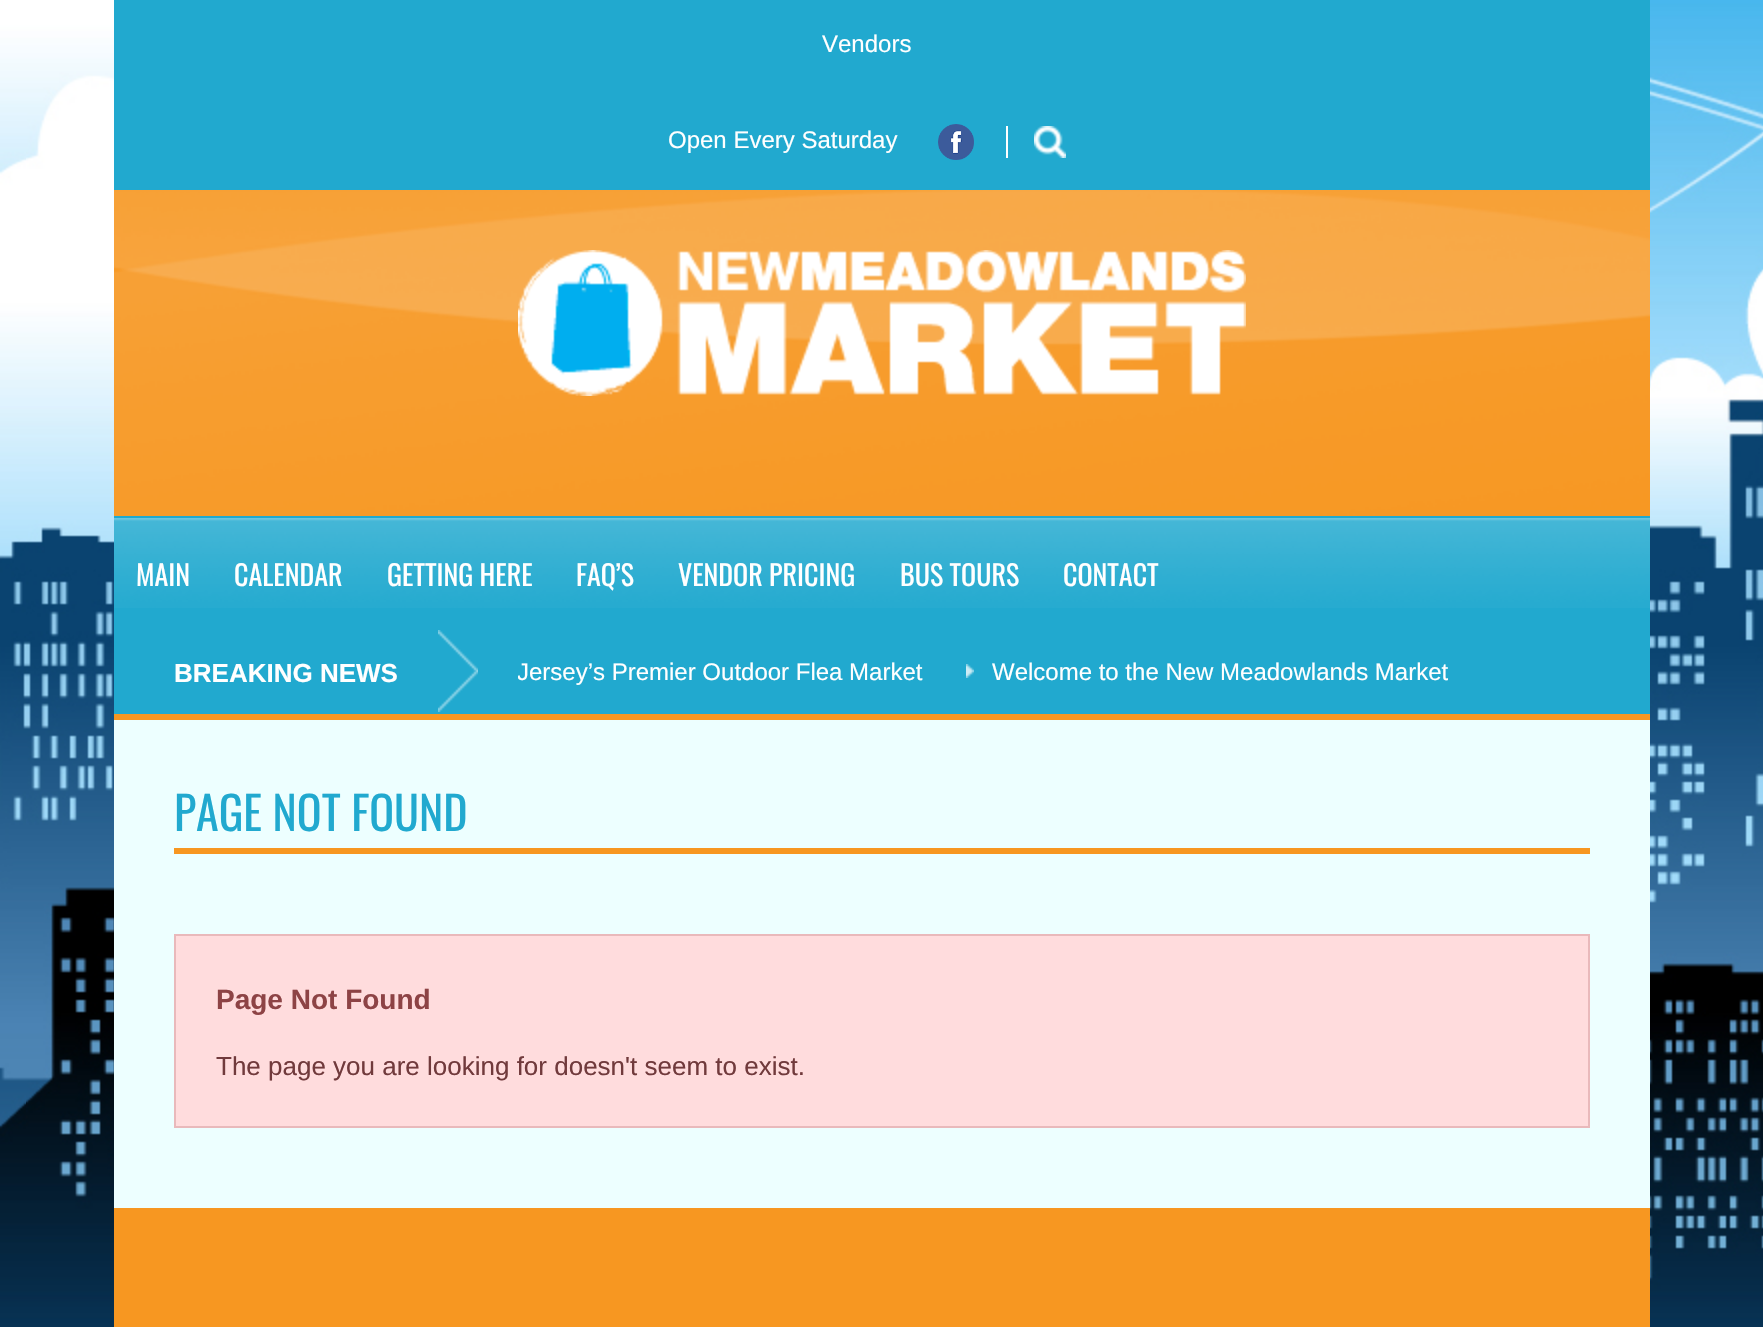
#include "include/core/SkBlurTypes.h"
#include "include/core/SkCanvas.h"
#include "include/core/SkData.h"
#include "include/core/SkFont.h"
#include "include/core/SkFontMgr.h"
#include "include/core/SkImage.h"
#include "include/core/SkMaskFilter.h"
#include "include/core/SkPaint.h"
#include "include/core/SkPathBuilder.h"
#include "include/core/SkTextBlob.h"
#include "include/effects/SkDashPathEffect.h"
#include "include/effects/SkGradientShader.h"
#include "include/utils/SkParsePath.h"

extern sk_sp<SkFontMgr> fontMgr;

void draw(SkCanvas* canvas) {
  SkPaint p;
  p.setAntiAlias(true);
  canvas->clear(SK_ColorWHITE);
  canvas->drawImageRect(SkImages::DeferredFromEncodedData(SkData::MakeFromFileName("images/1.png")), SkRect::MakeLTRB(0, 0, 1763, 1327), SkSamplingOptions());
  p.setColor(SkColorSetRGB(33, 169, 207));
  canvas->drawRect(SkRect::MakeLTRB(114, 0, 1650, 190), p);
  canvas->drawImageRect(SkImages::DeferredFromEncodedData(SkData::MakeFromFileName("images/2.png")), SkRect::MakeLTRB(938, 124, 974, 160), SkSamplingOptions());
  canvas->drawImageRect(SkImages::DeferredFromEncodedData(SkData::MakeFromFileName("images/3.png")), SkRect::MakeLTRB(1034, 126, 1066, 158), SkSamplingOptions());
  p.setColor(SK_ColorWHITE);
  canvas->drawRect(SkRect::MakeLTRB(1006, 126, 1008, 158), p);
  p.setColor(SkColorSetRGB(247, 151, 33));
  canvas->drawRect(SkRect::MakeLTRB(114, 190, 1650, 516), p);
  canvas->drawImageRect(SkImages::DeferredFromEncodedData(SkData::MakeFromFileName("images/4.png")), SkRect::MakeLTRB(114, 190, 1650, 516), SkSamplingOptions());
  canvas->drawImageRect(SkImages::DeferredFromEncodedData(SkData::MakeFromFileName("images/5.png")), SkRect::MakeLTRB(518, 250, 1246, 396), SkSamplingOptions());
  p.setColor(SkColorSetRGB(33, 169, 207));
  canvas->drawRect(SkRect::MakeLTRB(114, 516, 1650, 714), p);
  canvas->drawImageRect(SkImages::DeferredFromEncodedData(SkData::MakeFromFileName("images/6.png")), SkRect::MakeLTRB(1180, 518, 1650, 608), SkSamplingOptions());
  canvas->drawImageRect(SkImages::DeferredFromEncodedData(SkData::MakeFromFileName("images/7.png")), SkRect::MakeLTRB(114, 518, 212, 608), SkSamplingOptions());
  canvas->drawImageRect(SkImages::DeferredFromEncodedData(SkData::MakeFromFileName("images/8.png")), SkRect::MakeLTRB(212, 518, 364, 608), SkSamplingOptions());
  canvas->drawImageRect(SkImages::DeferredFromEncodedData(SkData::MakeFromFileName("images/9.png")), SkRect::MakeLTRB(364, 518, 554, 608), SkSamplingOptions());
  canvas->drawImageRect(SkImages::DeferredFromEncodedData(SkData::MakeFromFileName("images/10.png")), SkRect::MakeLTRB(554, 518, 656, 608), SkSamplingOptions());
  canvas->drawImageRect(SkImages::DeferredFromEncodedData(SkData::MakeFromFileName("images/11.png")), SkRect::MakeLTRB(656, 518, 878, 608), SkSamplingOptions());
  canvas->drawImageRect(SkImages::DeferredFromEncodedData(SkData::MakeFromFileName("images/12.png")), SkRect::MakeLTRB(878, 518, 1040, 608), SkSamplingOptions());
  canvas->drawImageRect(SkImages::DeferredFromEncodedData(SkData::MakeFromFileName("images/13.png")), SkRect::MakeLTRB(1040, 518, 1180, 608), SkSamplingOptions());
  p.setColor(SkColorSetRGB(247, 151, 33));
  canvas->drawRect(SkRect::MakeLTRB(114, 714, 1650, 720), p);
  canvas->drawImageRect(SkImages::DeferredFromEncodedData(SkData::MakeFromFileName("images/14.png")), SkRect::MakeLTRB(438, 630, 478, 712), SkSamplingOptions());
  canvas->drawImageRect(SkImages::DeferredFromEncodedData(SkData::MakeFromFileName("images/15.png")), SkRect::MakeLTRB(966, 664, 974, 678), SkSamplingOptions());
  p.setColor(SkColorSetRGB(237, 255, 255));
  canvas->drawRect(SkRect::MakeLTRB(114, 720, 1650, 1208), p);
  p.setColor(SkColorSetRGB(247, 151, 33));
  canvas->drawRect(SkRect::MakeLTRB(174, 848, 1590, 854), p);
  p.setColor(SkColorSetRGB(255, 220, 221));
  canvas->drawRect(SkRect::MakeLTRB(175, 935, 1589, 1127), p);
  p.setStyle(SkPaint::kStroke_Style);
  p.setStrokeWidth(2);
  p.setColor(SkColorSetRGB(233, 185, 187));
  canvas->drawRect(SkRect::MakeLTRB(175, 935, 1589, 1127), p);
  p.setStyle(SkPaint::kFill_Style);
  p.setColor(SkColorSetRGB(247, 151, 33));
  canvas->drawRect(SkRect::MakeLTRB(114, 1208, 1650, 1327), p);
  SkFont font1(fontMgr->matchFamilyStyle("Liberation Sans", SkFontStyle::Normal()), 24);
  font1.setSubpixel(true);
  p.setColor(SK_ColorWHITE);
  canvas->drawString("Vendors", 822, 52, font1, p);
  canvas->drawString("Open Every Saturday", 668, 148, font1, p);
  SkFont font2(fontMgr->matchFamilyStyle("Oswald", SkFontStyle::Normal()), 28);
  font2.setSubpixel(true);
  canvas->drawString("MAIN", 136, 586, font2, p);
  canvas->drawString("CALENDAR", 234, 586, font2, p);
  canvas->drawString("GETTING HERE", 387, 586, font2, p);
  canvas->drawString("FAQ’S", 576, 586, font2, p);
  canvas->drawString("VENDOR PRICING", 678, 586, font2, p);
  canvas->drawString("BUS TOURS", 900, 586, font2, p);
  canvas->drawString("CONTACT", 1063, 586, font2, p);
  SkFont font3(fontMgr->matchFamilyStyle("Liberation Sans", SkFontStyle::Bold()), 26);
  font3.setSubpixel(true);
  canvas->drawString("BREAKING NEWS", 174, 682, font3, p);
  canvas->save();
  canvas->clipRect(SkRect::MakeLTRB(518, 630, 1610, 714));
  canvas->drawString("Jersey’s Premier Outdoor Flea Market", 517, 680, font1, p);
  canvas->restore();
  canvas->drawString("Welcome to the New Meadowlands Market", 992, 680, font1, p);
  SkFont font4(fontMgr->matchFamilyStyle("Oswald", SkFontStyle::Normal()), 46);
  font4.setSubpixel(true);
  p.setColor(SkColorSetRGB(33, 169, 207));
  canvas->drawString("PAGE NOT FOUND", 174, 831, font4, p);
  SkFont font5(fontMgr->matchFamilyStyle("Liberation Sans", SkFontStyle::Bold()), 28);
  font5.setSubpixel(true);
  p.setColor(SkColorSetRGB(141, 67, 69));
  canvas->drawString("Page Not Found", 216, 1009, font5, p);
  SkFont font6(fontMgr->matchFamilyStyle("Liberation Sans", SkFontStyle::Normal()), 26);
  font6.setSubpixel(true);
  p.setColor(SkColorSetRGB(113, 58, 60));
  canvas->drawString("The page you are looking for doesn't seem to exist.", 216, 1075, font6, p);
}
